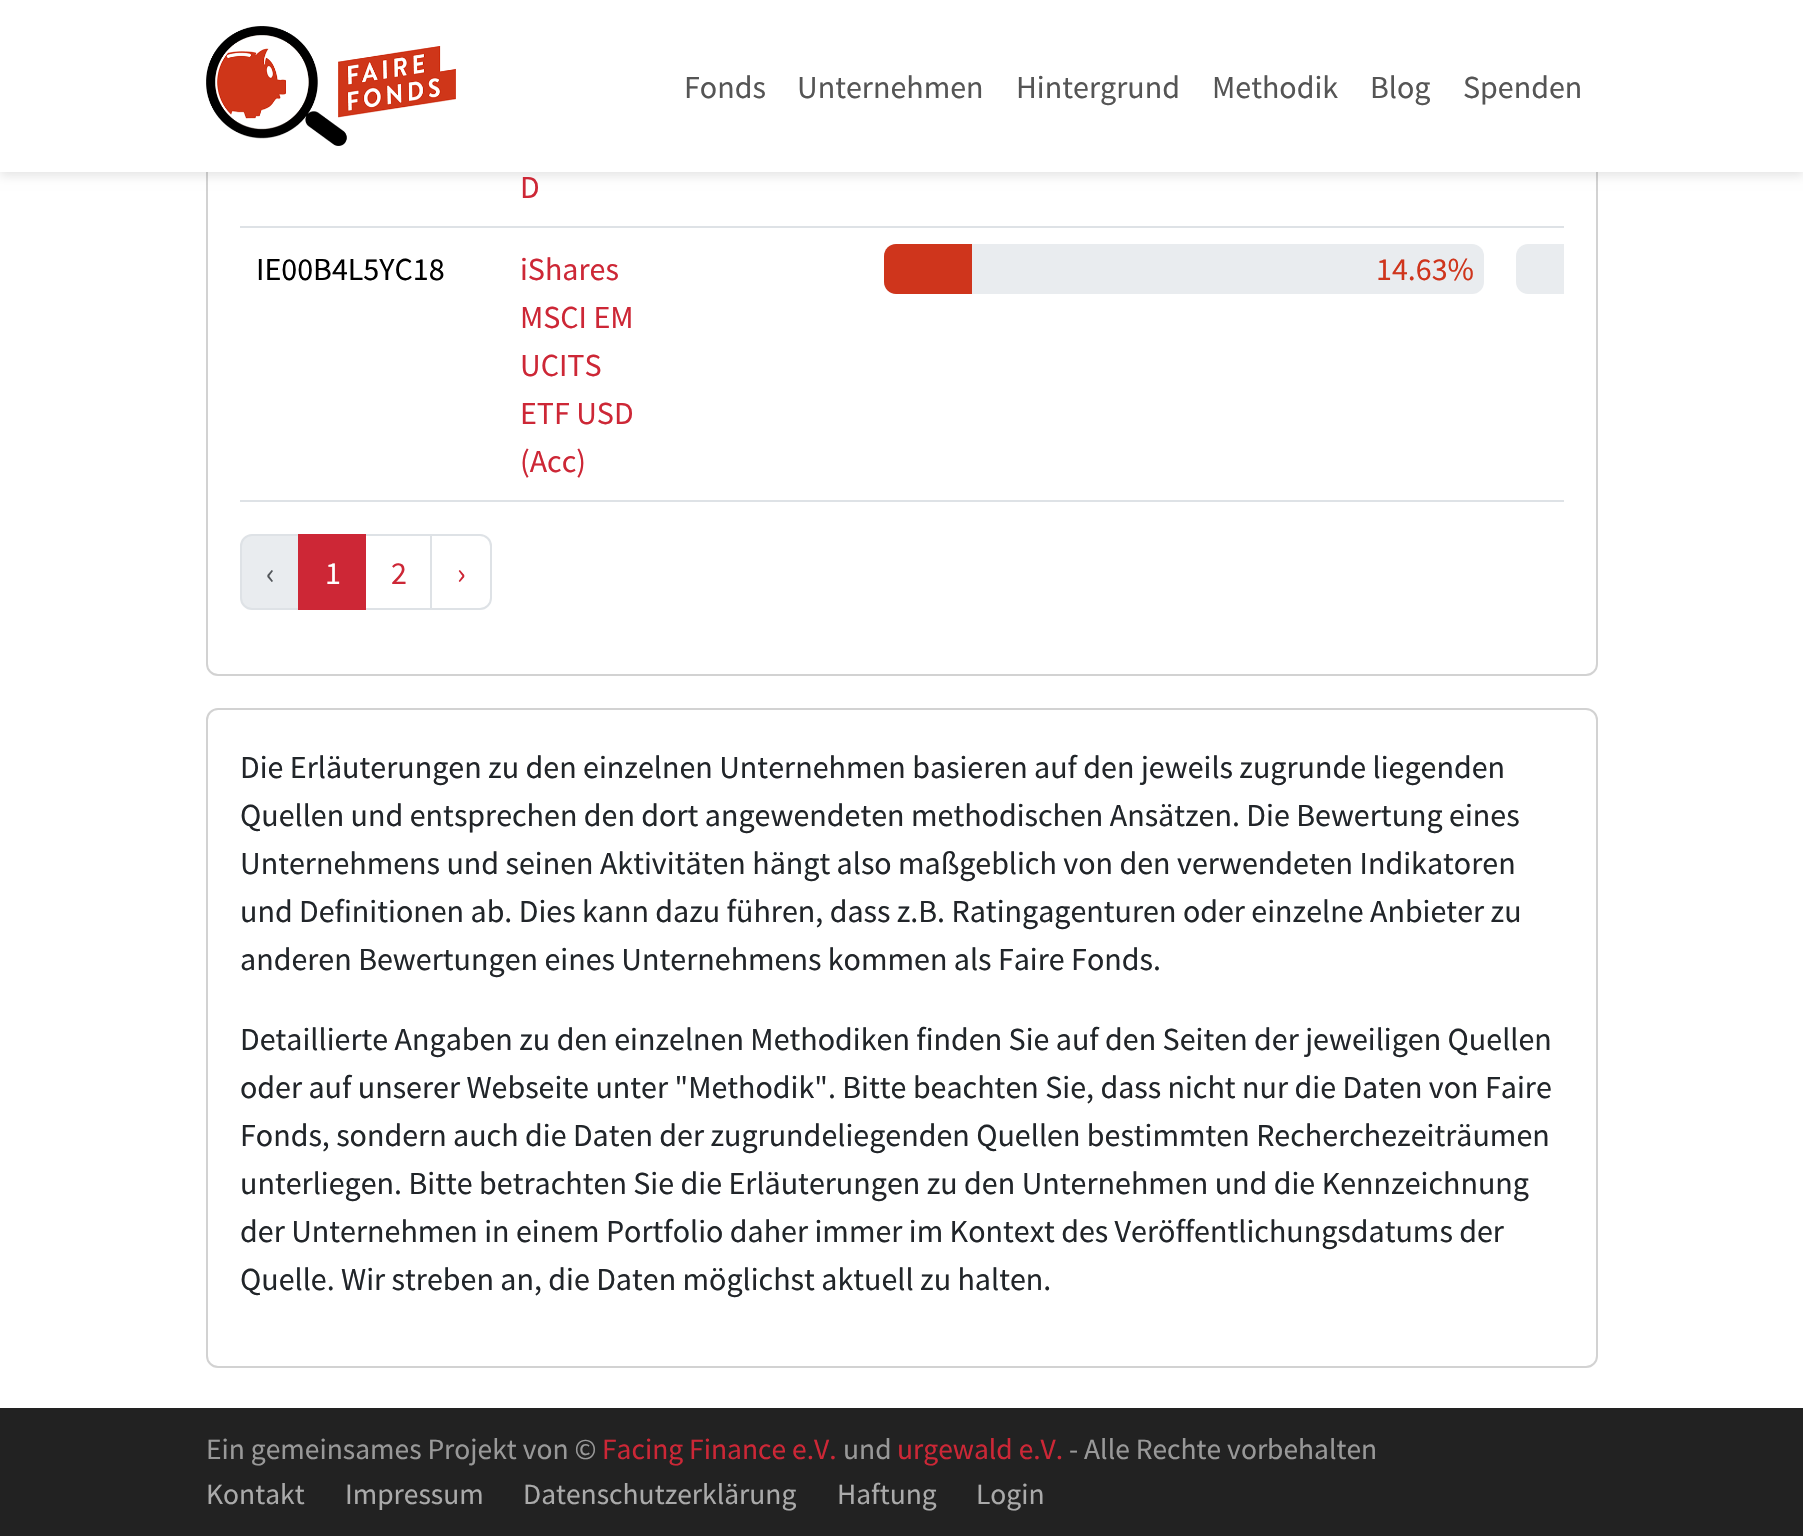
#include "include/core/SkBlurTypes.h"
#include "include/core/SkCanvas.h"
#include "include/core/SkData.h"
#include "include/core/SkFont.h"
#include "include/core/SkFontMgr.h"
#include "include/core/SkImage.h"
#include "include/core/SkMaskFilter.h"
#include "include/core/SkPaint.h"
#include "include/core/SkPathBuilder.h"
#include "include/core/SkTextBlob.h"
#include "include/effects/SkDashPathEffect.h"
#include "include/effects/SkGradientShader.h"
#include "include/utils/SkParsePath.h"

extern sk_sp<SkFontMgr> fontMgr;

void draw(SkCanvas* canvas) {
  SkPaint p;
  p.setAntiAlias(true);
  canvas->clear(SK_ColorWHITE);
  p.setStyle(SkPaint::kStroke_Style);
  p.setStrokeWidth(2);
  p.setColor(SkColorSetRGB(210, 210, 210));
  canvas->drawRoundRect(SkRect::MakeLTRB(207, -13, 1597, 675), 11, 11, p);
  p.setStyle(SkPaint::kFill_Style);
  p.setColor(SkColorSetARGB(26, 0, 0, 0));
  p.setMaskFilter(SkMaskFilter::MakeBlur(kNormal_SkBlurStyle, 5));
  canvas->drawRect(SkRect::MakeLTRB(0, 4, 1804, 176), p);
  p.setMaskFilter(nullptr);
  p.setColor(SK_ColorWHITE);
  canvas->drawRect(SkRect::MakeLTRB(0, 0, 1803, 172), p);
  canvas->drawImageRect(SkImages::DeferredFromEncodedData(SkData::MakeFromFileName("images/1.png")), SkRect::MakeLTRB(206, 26, 456, 146), SkSamplingOptions());
  p.setColor(SkColorSetRGB(222, 226, 230));
  canvas->drawRect(SkRect::MakeLTRB(240, 226, 1564, 228), p);
  canvas->drawRect(SkRect::MakeLTRB(240, 500, 1564, 502), p);
  p.setColor(SkColorSetRGB(233, 236, 239));
  canvas->drawPath(SkPathBuilder().moveTo(1528, 244).lineTo(1564, 244).lineTo(1564, 294).lineTo(1528, 294).cubicTo(1521.5f, 294, 1516, 288.5f, 1516, 282).lineTo(1516, 256).cubicTo(1516, 249.5f, 1521.5f, 244, 1528, 244).close().detach(), p);
  canvas->drawRoundRect(SkRect::MakeLTRB(884, 244, 1484, 294), 12, 12, p);
  p.setColor(SkColorSetRGB(207, 53, 28));
  canvas->drawPath(SkPathBuilder().moveTo(896, 244).lineTo(972, 244).lineTo(972, 294).lineTo(896, 294).cubicTo(889.5f, 294, 884, 288.5f, 884, 282).lineTo(884, 256).cubicTo(884, 249.5f, 889.5f, 244, 896, 244).close().detach(), p);
  p.setColor(SkColorSetRGB(233, 236, 239));
  canvas->drawPath(SkPathBuilder().moveTo(252, 535).lineTo(299, 535).lineTo(299, 609).lineTo(252, 609).cubicTo(246, 609, 241, 604, 241, 598).lineTo(241, 546).cubicTo(241, 540, 246, 535, 252, 535).close().detach(), p);
  p.setStyle(SkPaint::kStroke_Style);
  p.setColor(SkColorSetRGB(222, 226, 230));
  canvas->drawPath(SkPathBuilder().moveTo(252, 535).lineTo(299, 535).lineTo(299, 609).lineTo(252, 609).cubicTo(246, 609, 241, 604, 241, 598).lineTo(241, 546).cubicTo(241, 540, 246, 535, 252, 535).close().detach(), p);
  canvas->drawRect(SkRect::MakeLTRB(365, 535, 431, 609), p);
  p.setStyle(SkPaint::kFill_Style);
  p.setColor(SkColorSetRGB(205, 39, 54));
  canvas->drawRect(SkRect::MakeLTRB(298, 534, 366, 610), p);
  p.setColor(SK_ColorWHITE);
  canvas->drawPath(SkPathBuilder().moveTo(431, 535).lineTo(480, 535).cubicTo(486, 535, 491, 540, 491, 546).lineTo(491, 598).cubicTo(491, 604, 486, 609, 480, 609).lineTo(431, 609).close().detach(), p);
  p.setStyle(SkPaint::kStroke_Style);
  p.setColor(SkColorSetRGB(222, 226, 230));
  canvas->drawPath(SkPathBuilder().moveTo(431, 535).lineTo(480, 535).cubicTo(486, 535, 491, 540, 491, 546).lineTo(491, 598).cubicTo(491, 604, 486, 609, 480, 609).lineTo(431, 609).close().detach(), p);
  p.setColor(SkColorSetRGB(210, 210, 210));
  canvas->drawRoundRect(SkRect::MakeLTRB(207, 709, 1597, 1367), 11, 11, p);
  p.setStyle(SkPaint::kFill_Style);
  p.setColor(SkColorSetRGB(34, 34, 34));
  canvas->drawRect(SkRect::MakeLTRB(0, 1408, 1803, 1536), p);
  SkFont font1(fontMgr->matchFamilyStyle("Source Sans Pro", SkFontStyle::Normal()), 32);
  font1.setSubpixel(true);
  p.setColor(SkColorSetRGB(85, 85, 85));
  canvas->drawString("Fonds", 684, 98, font1, p);
  canvas->drawString("Unternehmen", 797, 98, font1, p);
  canvas->drawString("Hintergrund", 1016, 98, font1, p);
  canvas->drawString("Methodik", 1212, 98, font1, p);
  canvas->drawString("Blog", 1370, 98, font1, p);
  canvas->drawString("Spenden", 1463, 98, font1, p);
  p.setColor(SkColorSetRGB(205, 39, 54));
  canvas->drawString("D", 520, 198, font1, p);
  p.setColor(SK_ColorBLACK);
  canvas->drawString("IE00B4L5YC18", 256, 280, font1, p);
  p.setColor(SkColorSetRGB(205, 39, 54));
  canvas->drawString("iShares", 520, 280, font1, p);
  canvas->drawString("MSCI EM", 520, 328, font1, p);
  canvas->drawString("UCITS", 520, 376, font1, p);
  canvas->drawString("ETF USD", 520, 424, font1, p);
  canvas->drawString("(Acc)", 520, 472, font1, p);
  p.setColor(SkColorSetRGB(207, 53, 28));
  canvas->drawString("14.63%", 1376, 280, font1, p);
  p.setColor(SkColorSetRGB(83, 87, 91));
  canvas->drawString("‹", 266, 584, font1, p);
  p.setColor(SK_ColorWHITE);
  canvas->drawString("1", 325, 584, font1, p);
  p.setColor(SkColorSetRGB(205, 39, 54));
  canvas->drawString("2", 391, 584, font1, p);
  canvas->drawString("›", 457, 584, font1, p);
  p.setColor(SkColorSetRGB(33, 37, 41));
  canvas->drawString("Die Erläuterungen zu den einzelnen Unternehmen basieren auf den jeweils zugrunde liegenden", 240, 778, font1, p);
  canvas->drawString("Quellen und entsprechen den dort angewendeten methodischen Ansätzen. Die Bewertung eines", 240, 826, font1, p);
  canvas->drawString("Unternehmens und seinen Aktivitäten hängt also maßgeblich von den verwendeten Indikatoren", 240, 874, font1, p);
  canvas->drawString("und Definitionen ab. Dies kann dazu führen, dass z.B. Ratingagenturen oder einzelne Anbieter zu", 240, 922, font1, p);
  canvas->drawString("anderen Bewertungen eines Unternehmens kommen als Faire Fonds.", 240, 970, font1, p);
  canvas->drawString("Detaillierte Angaben zu den einzelnen Methodiken finden Sie auf den Seiten der jeweiligen Quellen", 240, 1050, font1, p);
  canvas->drawString("oder auf unserer Webseite unter \"Methodik\". Bitte beachten Sie, dass nicht nur die Daten von Faire", 240, 1098, font1, p);
  canvas->drawString("Fonds, sondern auch die Daten der zugrundeliegenden Quellen bestimmten Recherchezeiträumen", 240, 1146, font1, p);
  canvas->drawString("unterliegen. Bitte betrachten Sie die Erläuterungen zu den Unternehmen und die Kennzeichnung", 240, 1194, font1, p);
  canvas->drawString("der Unternehmen in einem Portfolio daher immer im Kontext des Veröffentlichungsdatums der", 240, 1242, font1, p);
  canvas->drawString("Quelle. Wir streben an, die Daten möglichst aktuell zu halten.", 240, 1290, font1, p);
  SkFont font2(fontMgr->matchFamilyStyle("Source Sans Pro", SkFontStyle::Normal()), 29.5f);
  font2.setSubpixel(true);
  p.setColor(SkColorSetRGB(153, 153, 153));
  canvas->drawString("Ein gemeinsames Projekt von ©", 206, 1459, font2, p);
  p.setColor(SkColorSetRGB(205, 39, 54));
  canvas->drawString("Facing Finance e.V.", 602, 1459, font2, p);
  p.setColor(SkColorSetRGB(153, 153, 153));
  canvas->drawString("und", 843, 1459, font2, p);
  p.setColor(SkColorSetRGB(205, 39, 54));
  canvas->drawString("urgewald e.V.", 897, 1459, font2, p);
  p.setColor(SkColorSetRGB(153, 153, 153));
  canvas->drawString("- Alle Rechte vorbehalten", 1069, 1459, font2, p);
  p.setColor(SkColorSetRGB(170, 170, 170));
  canvas->drawString("Kontakt", 206, 1504, font2, p);
  canvas->drawString("Impressum", 345, 1504, font2, p);
  canvas->drawString("Datenschutzerklärung", 523, 1504, font2, p);
  canvas->drawString("Haftung", 837, 1504, font2, p);
  canvas->drawString("Login", 976, 1504, font2, p);
}
